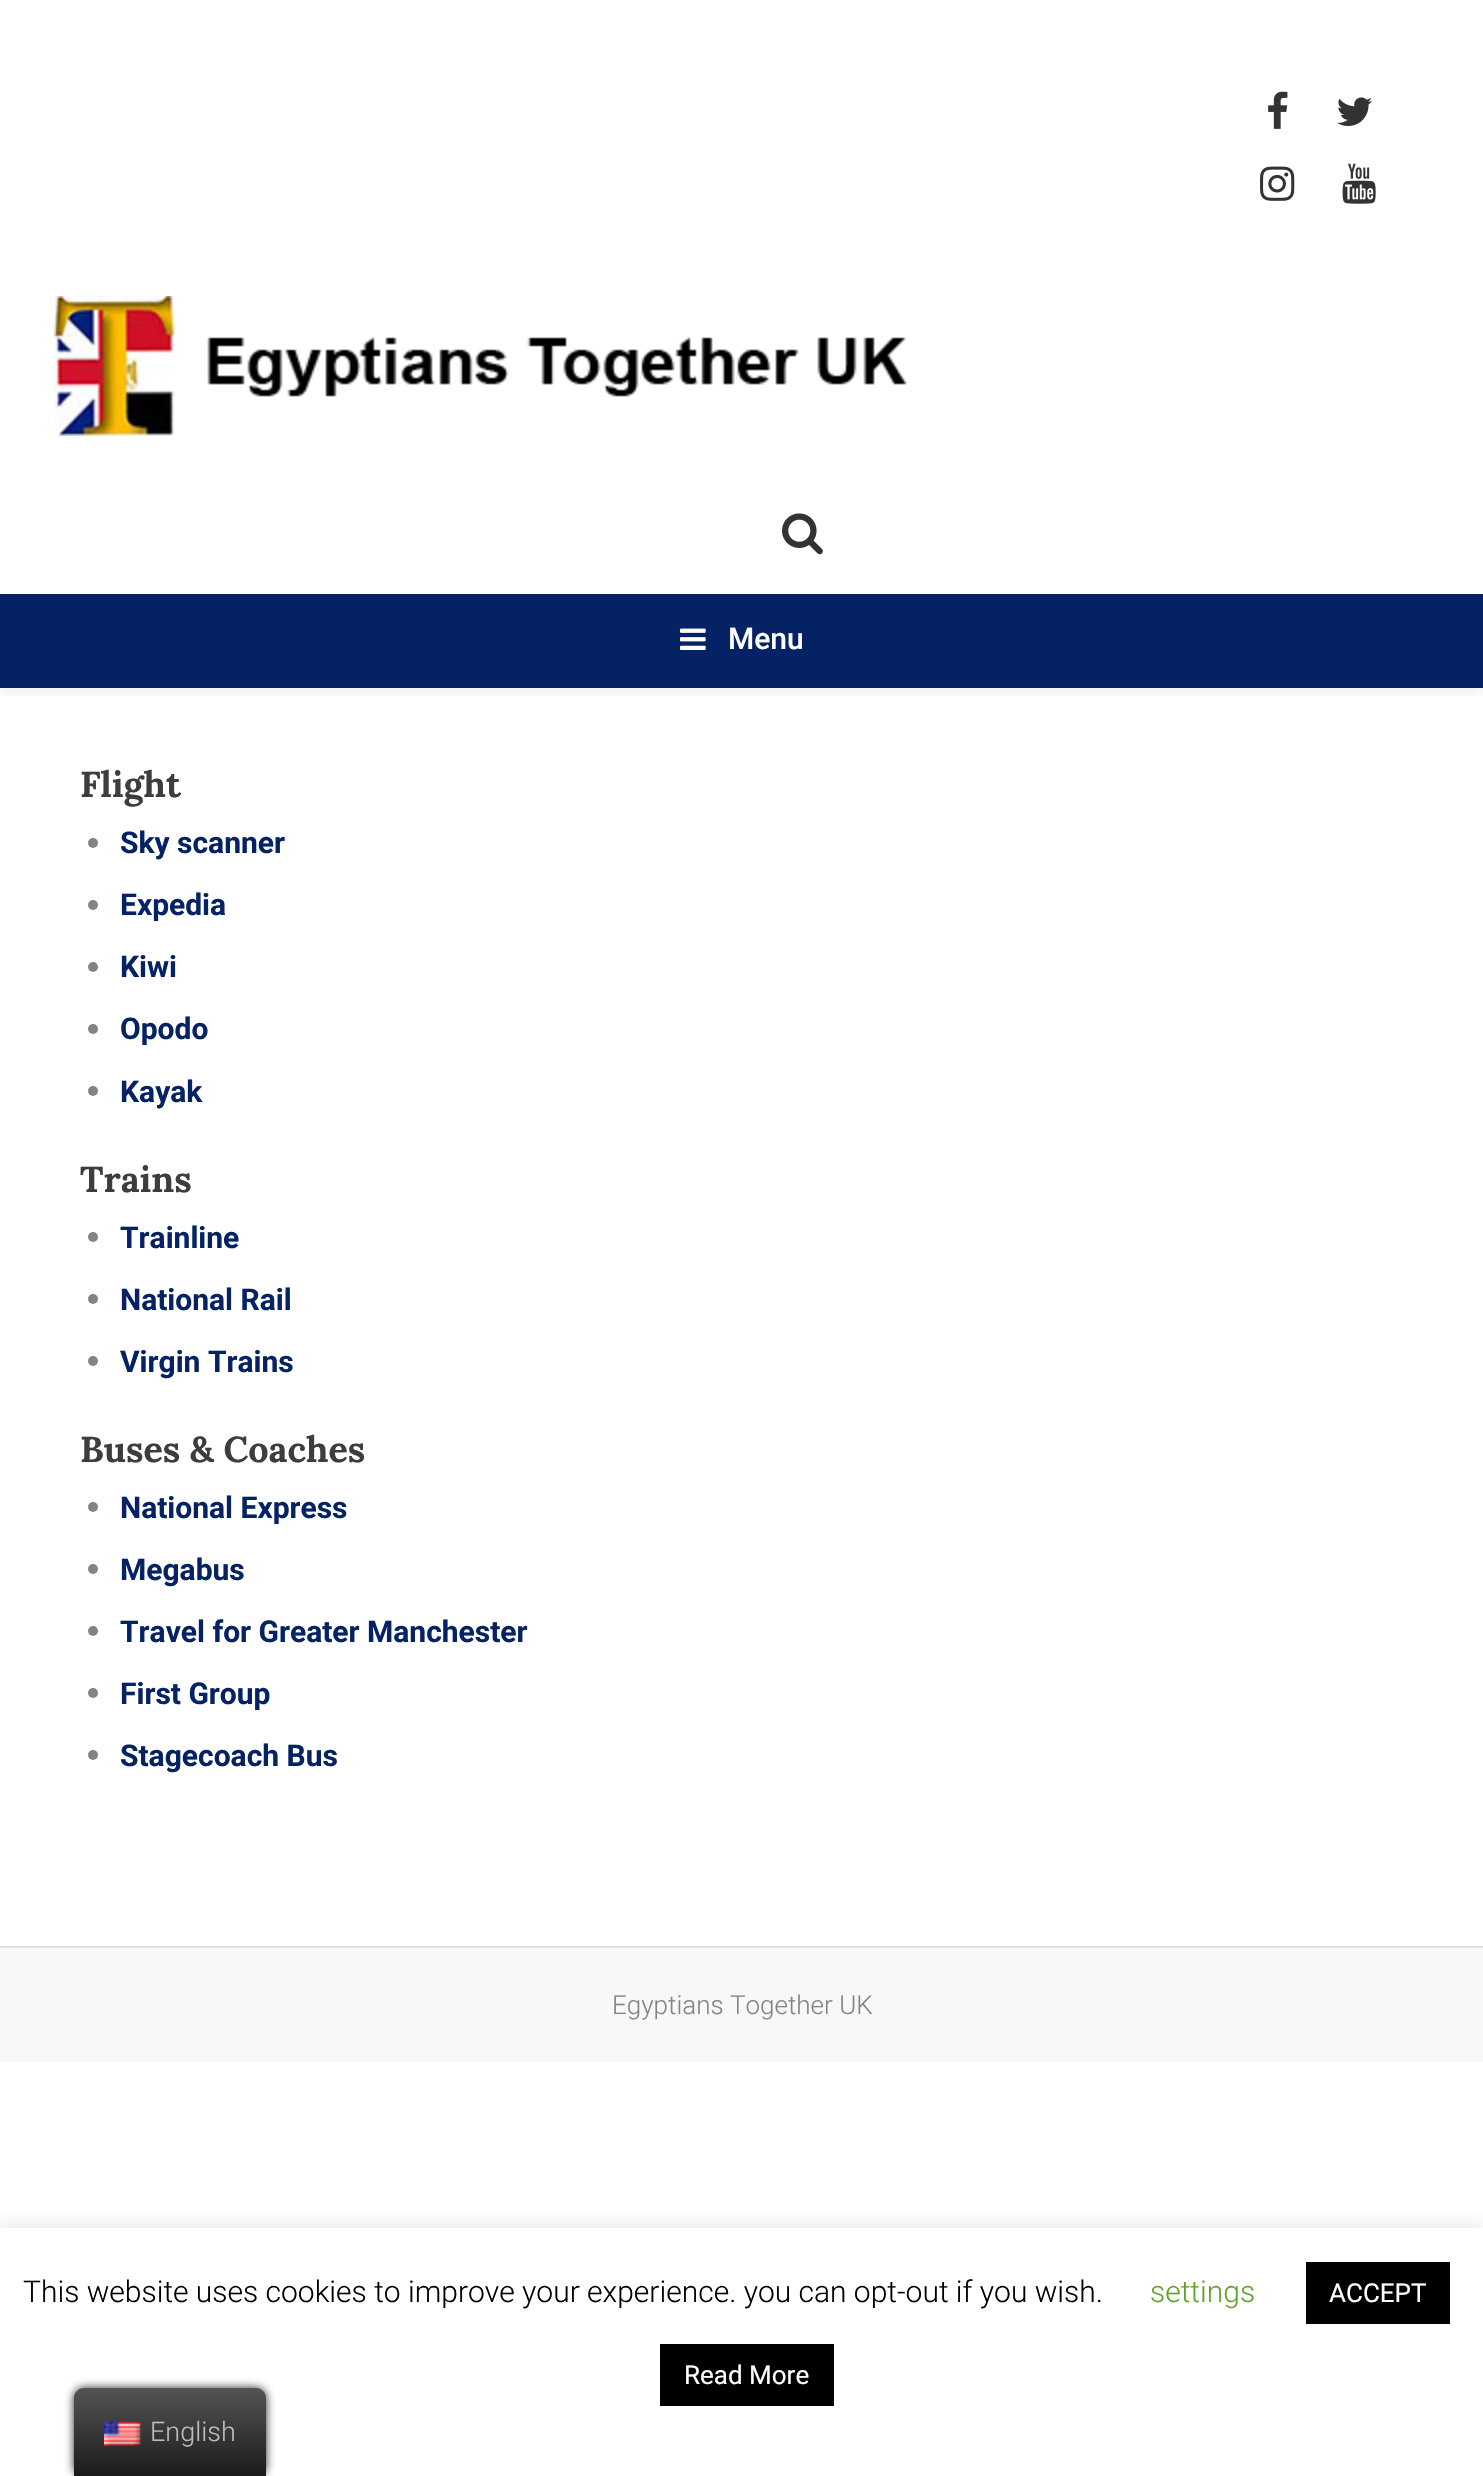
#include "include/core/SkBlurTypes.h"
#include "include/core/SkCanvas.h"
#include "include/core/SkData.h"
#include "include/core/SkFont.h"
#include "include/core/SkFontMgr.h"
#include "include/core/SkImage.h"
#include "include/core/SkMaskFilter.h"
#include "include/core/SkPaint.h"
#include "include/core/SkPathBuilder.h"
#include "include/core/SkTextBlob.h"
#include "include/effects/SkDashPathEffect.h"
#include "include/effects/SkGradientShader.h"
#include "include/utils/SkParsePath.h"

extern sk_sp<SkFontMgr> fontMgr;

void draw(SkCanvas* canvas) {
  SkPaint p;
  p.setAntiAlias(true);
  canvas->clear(SK_ColorWHITE);
  canvas->save();
  canvas->clipRect(SkRect::MakeLTRB(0, 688, 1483, 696));
  p.setColor(SkColorSetARGB(26, 0, 0, 0));
  p.setMaskFilter(SkMaskFilter::MakeBlur(kNormal_SkBlurStyle, 10));
  canvas->drawRect(SkRect::MakeLTRB(0, 0, 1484, 688), p);
  p.setMaskFilter(nullptr);
  canvas->restore();
  canvas->drawImageRect(SkImages::DeferredFromEncodedData(SkData::MakeFromFileName("images/1.png")), SkRect::MakeLTRB(1268, 91, 1288, 129), SkSamplingOptions());
  canvas->drawImageRect(SkImages::DeferredFromEncodedData(SkData::MakeFromFileName("images/2.png")), SkRect::MakeLTRB(1337, 97, 1372, 126), SkSamplingOptions());
  canvas->drawImageRect(SkImages::DeferredFromEncodedData(SkData::MakeFromFileName("images/3.png")), SkRect::MakeLTRB(1260, 166, 1295, 201), SkSamplingOptions());
  canvas->drawImageRect(SkImages::DeferredFromEncodedData(SkData::MakeFromFileName("images/4.png")), SkRect::MakeLTRB(1342, 163, 1376, 204), SkSamplingOptions());
  canvas->drawImageRect(SkImages::DeferredFromEncodedData(SkData::MakeFromFileName("images/5.png")), SkRect::MakeLTRB(53, 296, 907, 436), SkSamplingOptions());
  canvas->drawImageRect(SkImages::DeferredFromEncodedData(SkData::MakeFromFileName("images/6.png")), SkRect::MakeLTRB(782, 513, 823, 555), SkSamplingOptions());
  p.setColor(SkColorSetRGB(5, 34, 100));
  canvas->drawRect(SkRect::MakeLTRB(0, 594, 1483, 688), p);
  canvas->drawImageRect(SkImages::DeferredFromEncodedData(SkData::MakeFromFileName("images/7.png")), SkRect::MakeLTRB(680, 628, 706, 650), SkSamplingOptions());
  p.setColor(SkColorSetRGB(131, 131, 131));
  canvas->drawCircle(93, 843, 5, p);
  canvas->drawCircle(93, 905, 5, p);
  canvas->drawCircle(93, 967, 5, p);
  canvas->drawCircle(93, 1029, 5, p);
  canvas->drawCircle(93, 1091, 5, p);
  canvas->drawCircle(93, 1237, 5, p);
  canvas->drawCircle(93, 1299, 5, p);
  canvas->drawCircle(93, 1361, 5, p);
  canvas->drawCircle(93, 1507, 5, p);
  canvas->drawCircle(93, 1569, 5, p);
  canvas->drawCircle(93, 1631, 5, p);
  canvas->drawCircle(93, 1693, 5, p);
  canvas->drawCircle(93, 1755, 5, p);
  p.setColor(SkColorSetRGB(225, 225, 225));
  canvas->drawRect(SkRect::MakeLTRB(0, 1946, 1483, 1948), p);
  p.setColor(SkColorSetRGB(248, 248, 248));
  canvas->drawRect(SkRect::MakeLTRB(0, 1948, 1483, 2062), p);
  canvas->save();
  canvas->clipRect(SkRect::MakeLTRB(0, 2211, 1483, 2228));
  p.setColor(SkColorSetARGB(77, 172, 171, 171));
  p.setMaskFilter(SkMaskFilter::MakeBlur(kNormal_SkBlurStyle, 10));
  canvas->drawRect(SkRect::MakeLTRB(0, 2226, 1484, 2474), p);
  p.setMaskFilter(nullptr);
  canvas->restore();
  p.setColor(SK_ColorBLACK);
  canvas->drawRect(SkRect::MakeLTRB(1306, 2262, 1450, 2324), p);
  canvas->drawRect(SkRect::MakeLTRB(660, 2344, 834, 2406), p);
  p.setColor(SkColorSetRGB(33, 33, 33));
  p.setMaskFilter(SkMaskFilter::MakeBlur(kNormal_SkBlurStyle, 5));
  canvas->drawRoundRect(SkRect::MakeLTRB(74, 2388, 266, 2476), 10, 10, p);
  p.setMaskFilter(nullptr);
  {
    const SkColor colors[] = {SkColorSetRGB(27, 27, 27), SkColorSetRGB(84, 84, 84)};
    const float stops[] = {0, 1};
    const SkPoint ends[] = {{170, 2476}, {170, 2388}};
    p.setShader(SkGradientShader::MakeLinear(ends, colors, stops, 2, SkTileMode::kClamp));
    p.setAlpha(255);
  }
  canvas->drawPath(SkPathBuilder().moveTo(84, 2388).lineTo(256, 2388).cubicTo(261.5f, 2388, 266, 2392.5f, 266, 2398).lineTo(266, 2476).lineTo(74, 2476).lineTo(74, 2398).cubicTo(74, 2392.5f, 78.5f, 2388, 84, 2388).close().detach(), p);
  canvas->drawImageRect(SkImages::DeferredFromEncodedData(SkData::MakeFromFileName("images/8.png")), SkRect::MakeLTRB(104, 2421, 141, 2446), SkSamplingOptions());
  SkFont font1(fontMgr->matchFamilyStyle("Roboto", SkFontStyle(500, SkFontStyle::kNormal_Width, SkFontStyle::kUpright_Slant)), 30);
  font1.setSubpixel(true);
  p.setShader(nullptr);
  p.setColor(SK_ColorWHITE);
  canvas->drawString("Menu", 728, 649, font1, p);
  SkFont font2(fontMgr->matchFamilyStyle("Lora", SkFontStyle::Bold()), 36);
  font2.setSubpixel(true);
  p.setColor(SkColorSetRGB(61, 61, 61));
  canvas->drawString("Flight", 80, 797, font2, p);
  SkFont font3(fontMgr->matchFamilyStyle("Roboto", SkFontStyle::Bold()), 30);
  font3.setSubpixel(true);
  p.setColor(SkColorSetRGB(5, 34, 100));
  canvas->drawString("Sky scanner", 120, 853, font3, p);
  canvas->drawString("Expedia", 120, 915, font3, p);
  canvas->drawString("Kiwi", 120, 977, font3, p);
  canvas->drawString("Opodo", 120, 1039, font3, p);
  canvas->drawString("Kayak", 120, 1102, font3, p);
  p.setColor(SkColorSetRGB(61, 61, 61));
  canvas->drawString("Trains", 80, 1192, font2, p);
  p.setColor(SkColorSetRGB(5, 34, 100));
  canvas->drawString("Trainline", 120, 1248, font3, p);
  canvas->drawString("National Rail", 120, 1310, font3, p);
  canvas->drawString("Virgin Trains", 120, 1372, font3, p);
  p.setColor(SkColorSetRGB(61, 61, 61));
  canvas->drawString("Buses & Coaches", 80, 1462, font2, p);
  p.setColor(SkColorSetRGB(5, 34, 100));
  canvas->drawString("National Express", 120, 1518, font3, p);
  canvas->drawString("Megabus", 120, 1580, font3, p);
  canvas->drawString("Travel for Greater Manchester", 120, 1642, font3, p);
  canvas->drawString("First Group", 120, 1704, font3, p);
  canvas->drawString("Stagecoach Bus", 120, 1766, font3, p);
  SkFont font4(fontMgr->matchFamilyStyle("Roboto", SkFontStyle(300, SkFontStyle::kNormal_Width, SkFontStyle::kUpright_Slant)), 26);
  font4.setSubpixel(true);
  p.setColor(SkColorSetRGB(131, 131, 131));
  canvas->drawString("Egyptians Together UK", 612, 2014, font4, p);
  SkFont font5(fontMgr->matchFamilyStyle("Roboto", SkFontStyle(300, SkFontStyle::kNormal_Width, SkFontStyle::kUpright_Slant)), 30);
  font5.setSubpixel(true);
  p.setColor(SK_ColorBLACK);
  canvas->drawString("This website uses cookies to improve your experience. you can opt-out if you wish.", 23, 2302, font5, p);
  p.setColor(SkColorSetRGB(98, 163, 41));
  canvas->drawString("settings", 1150, 2302, font5, p);
  SkFont font6(fontMgr->matchFamilyStyle("Roboto", SkFontStyle::Normal()), 26);
  font6.setSubpixel(true);
  p.setColor(SK_ColorWHITE);
  canvas->drawString("ACCEPT", 1329, 2302, font6, p);
  canvas->drawString("Read More", 684, 2384, font6, p);
  SkFont font7(fontMgr->matchFamilyStyle("Roboto", SkFontStyle(300, SkFontStyle::kNormal_Width, SkFontStyle::kUpright_Slant)), 27);
  font7.setSubpixel(true);
  p.setColor(SkColorSetRGB(189, 189, 189));
  canvas->drawString("English", 150, 2441, font7, p);
}
